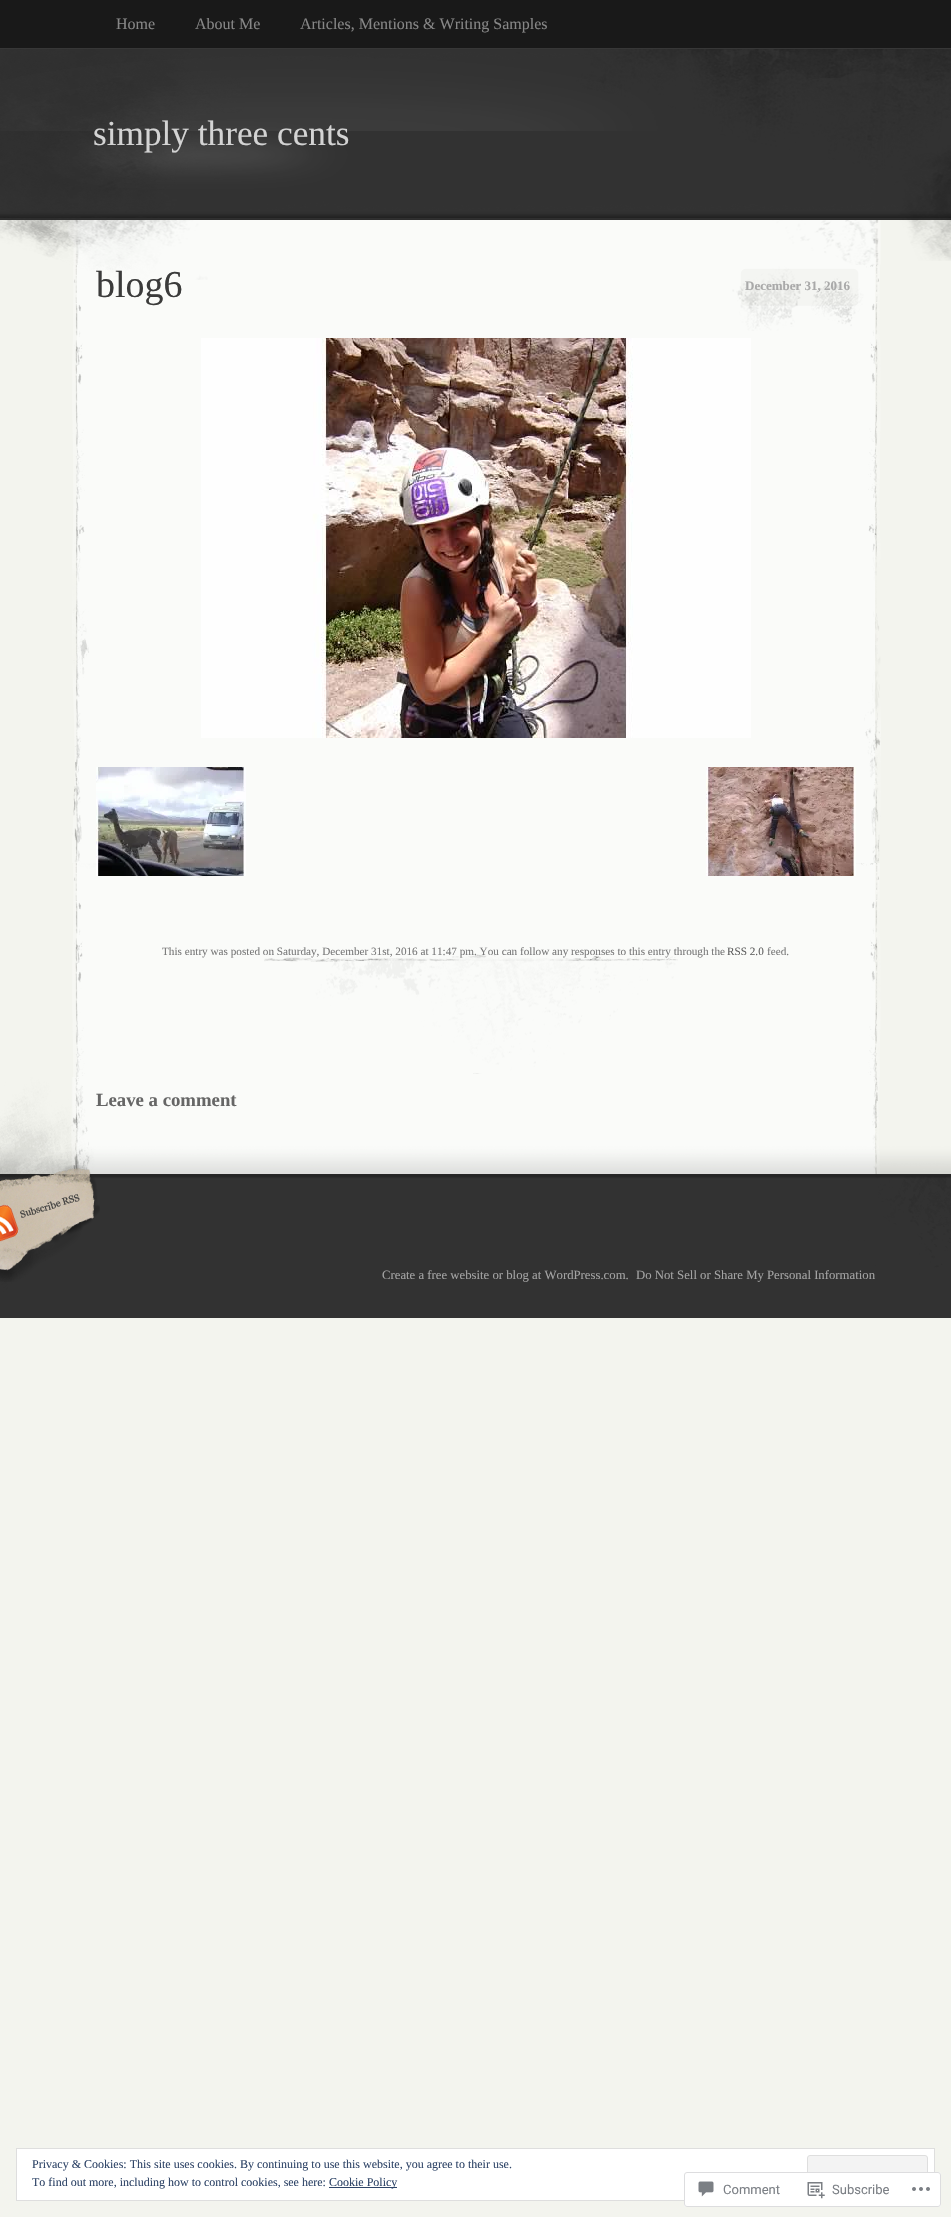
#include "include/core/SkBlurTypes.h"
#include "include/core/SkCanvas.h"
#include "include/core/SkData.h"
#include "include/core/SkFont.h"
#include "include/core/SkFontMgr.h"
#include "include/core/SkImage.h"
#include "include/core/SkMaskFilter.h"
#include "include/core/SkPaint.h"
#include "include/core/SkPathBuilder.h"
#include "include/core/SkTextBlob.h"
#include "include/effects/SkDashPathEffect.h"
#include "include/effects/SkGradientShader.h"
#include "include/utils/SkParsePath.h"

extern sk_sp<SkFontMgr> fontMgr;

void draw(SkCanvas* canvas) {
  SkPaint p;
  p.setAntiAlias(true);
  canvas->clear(SkColorSetRGB(243, 244, 238));
  p.setColor(SkColorSetRGB(25, 25, 25));
  canvas->drawRect(SkRect::MakeLTRB(0, 0, 951, 48), p);
  p.setColor(SkColorSetRGB(55, 55, 55));
  canvas->drawRect(SkRect::MakeLTRB(0, 48, 951, 49), p);
  canvas->drawImageRect(SkImages::DeferredFromEncodedData(SkData::MakeFromFileName("images/1.png")), SkRect::MakeLTRB(0, 49, 951, 210), SkSamplingOptions());
  canvas->drawImageRect(SkImages::DeferredFromEncodedData(SkData::MakeFromFileName("images/2.png")), SkRect::MakeLTRB(0, 49, 951, 265), SkSamplingOptions());
  canvas->drawImageRect(SkImages::DeferredFromEncodedData(SkData::MakeFromFileName("images/3.png")), SkRect::MakeLTRB(72, 265, 881, 1128), SkSamplingOptions());
  canvas->drawImageRect(SkImages::DeferredFromEncodedData(SkData::MakeFromFileName("images/4.png")), SkRect::MakeLTRB(732, 265, 864, 331), SkSamplingOptions());
  canvas->drawImageRect(SkImages::DeferredFromEncodedData(SkData::MakeFromFileName("images/5.png")), SkRect::MakeLTRB(201, 338, 751, 738), SkSamplingOptions());
  canvas->drawImageRect(SkImages::DeferredFromEncodedData(SkData::MakeFromFileName("images/6.png")), SkRect::MakeLTRB(96, 767, 246, 876), SkSamplingOptions());
  canvas->drawImageRect(SkImages::DeferredFromEncodedData(SkData::MakeFromFileName("images/7.png")), SkRect::MakeLTRB(706, 767, 856, 876), SkSamplingOptions());
  canvas->drawImageRect(SkImages::DeferredFromEncodedData(SkData::MakeFromFileName("images/8.png")), SkRect::MakeLTRB(264, 954, 678, 1074), SkSamplingOptions());
  canvas->drawImageRect(SkImages::DeferredFromEncodedData(SkData::MakeFromFileName("images/9.png")), SkRect::MakeLTRB(0, 1077, 951, 1318), SkSamplingOptions());
  canvas->drawImageRect(SkImages::DeferredFromEncodedData(SkData::MakeFromFileName("images/10.png")), SkRect::MakeLTRB(0, 1165, 100, 1282), SkSamplingOptions());
  p.setColor(SK_ColorWHITE);
  canvas->drawRect(SkRect::MakeLTRB(16.5f, 2148.5f, 934.5f, 2200.5f), p);
  p.setStyle(SkPaint::kStroke_Style);
  p.setStrokeWidth(1);
  p.setColor(SkColorSetRGB(222, 222, 222));
  canvas->drawRect(SkRect::MakeLTRB(16.5f, 2148.5f, 934.5f, 2200.5f), p);
  p.setStyle(SkPaint::kFill_Style);
  p.setColor(SkColorSetRGB(243, 243, 243));
  canvas->drawRoundRect(SkRect::MakeLTRB(807.5f, 2155.5f, 927.5f, 2193.5f), 2.5f, 2.5f, p);
  p.setStyle(SkPaint::kStroke_Style);
  p.setColor(SkColorSetRGB(222, 222, 222));
  canvas->drawRoundRect(SkRect::MakeLTRB(807.5f, 2155.5f, 927.5f, 2193.5f), 2.5f, 2.5f, p);
  p.setStyle(SkPaint::kFill_Style);
  p.setColor(SkColorSetRGB(46, 68, 103));
  canvas->drawRect(SkRect::MakeLTRB(329, 2187, 397, 2188), p);
  p.setColor(SkColorSetARGB(250, 255, 255, 255));
  canvas->drawRoundRect(SkRect::MakeLTRB(684, 2172, 941, 2207), 3, 3, p);
  p.setStyle(SkPaint::kStroke_Style);
  p.setColor(SkColorSetARGB(250, 220, 220, 222));
  canvas->drawRoundRect(SkRect::MakeLTRB(684.5f, 2172.5f, 940.5f, 2206.5f), 2.5f, 2.5f, p);
  canvas->drawImageRect(SkImages::DeferredFromEncodedData(SkData::MakeFromFileName("images/11.png")), SkRect::MakeLTRB(698, 2181, 714, 2197), SkSamplingOptions());
  canvas->drawImageRect(SkImages::DeferredFromEncodedData(SkData::MakeFromFileName("images/12.png")), SkRect::MakeLTRB(807, 2182, 825, 2199), SkSamplingOptions());
  canvas->drawImageRect(SkImages::DeferredFromEncodedData(SkData::MakeFromFileName("images/13.png")), SkRect::MakeLTRB(912, 2187, 930, 2191), SkSamplingOptions());
  SkFont font1(fontMgr->matchFamilyStyle("Liberation Serif", SkFontStyle::Normal()), 16);
  font1.setSubpixel(true);
  p.setStyle(SkPaint::kFill_Style);
  p.setColor(SkColorSetRGB(134, 134, 134));
  canvas->drawString("Home", 116, 29, font1, p);
  canvas->drawString("About Me", 195, 29, font1, p);
  canvas->drawString("Articles, Mentions & Writing Samples", 300, 29, font1, p);
  SkFont font2(fontMgr->matchFamilyStyle("Liberation Serif", SkFontStyle::Normal()), 35.25f);
  font2.setSubpixel(true);
  p.setColor(SkColorSetRGB(211, 211, 211));
  canvas->drawString("simply three cents", 93, 145, font2, p);
  SkFont font3(fontMgr->matchFamilyStyle("Liberation Serif", SkFontStyle::Normal()), 38);
  font3.setSubpixel(true);
  p.setColor(SkColorSetRGB(59, 59, 59));
  canvas->drawString("blog6", 96, 297, font3, p);
  SkFont font4(fontMgr->matchFamilyStyle("Liberation Serif", SkFontStyle::Bold()), 13);
  font4.setSubpixel(true);
  p.setColor(SkColorSetRGB(169, 169, 169));
  canvas->drawString("December 31, 2016", 745, 290, font4, p);
  SkFont font5(fontMgr->matchFamilyStyle("Liberation Serif", SkFontStyle::Normal()), 11.2f);
  font5.setSubpixel(true);
  p.setColor(SkColorSetRGB(121, 121, 121));
  canvas->drawString("This entry was posted on Saturday, December 31st, 2016 at 11:47 pm. You can follow any responses to this entry through the", 162, 955, font5, p);
  p.setColor(SkColorSetRGB(95, 95, 95));
  canvas->drawString("RSS 2.0", 727, 955, font5, p);
  p.setColor(SkColorSetRGB(121, 121, 121));
  canvas->drawString("feed.", 767, 955, font5, p);
  SkFont font6(fontMgr->matchFamilyStyle("Liberation Serif", SkFontStyle::Bold()), 18.75f);
  font6.setSubpixel(true);
  p.setColor(SkColorSetRGB(102, 102, 102));
  canvas->drawString("Leave a comment", 96, 1106, font6, p);
  SkFont font7(fontMgr->matchFamilyStyle("Liberation Serif", SkFontStyle::Normal()), 12.75f);
  font7.setSubpixel(true);
  p.setColor(SkColorSetRGB(163, 163, 163));
  canvas->drawString("Create a free website or blog at WordPress.com.", 382, 1279, font7, p);
  canvas->drawString("Do Not Sell or Share My Personal Information", 636, 1279, font7, p);
  SkFont font8(fontMgr->matchFamilyStyle("Liberation Serif", SkFontStyle::Normal()), 12);
  font8.setSubpixel(true);
  p.setColor(SkColorSetRGB(46, 68, 103));
  canvas->drawString("Privacy & Cookies: This site uses cookies. By continuing to use this website, you agree to their use.", 32, 2168, font8, p);
  canvas->drawString("To find out more, including how to control cookies, see here:", 32, 2186, font8, p);
  canvas->drawString("Cookie Policy", 329, 2186, font8, p);
  SkFont font9(fontMgr->matchFamilyStyle("Roboto", SkFontStyle::Normal()), 13);
  font9.setSubpixel(true);
  p.setColor(SkColorSetRGB(123, 127, 133));
  canvas->drawString("Comment", 723, 2194, font9, p);
  canvas->drawString("Subscribe", 832, 2194, font9, p);
}
